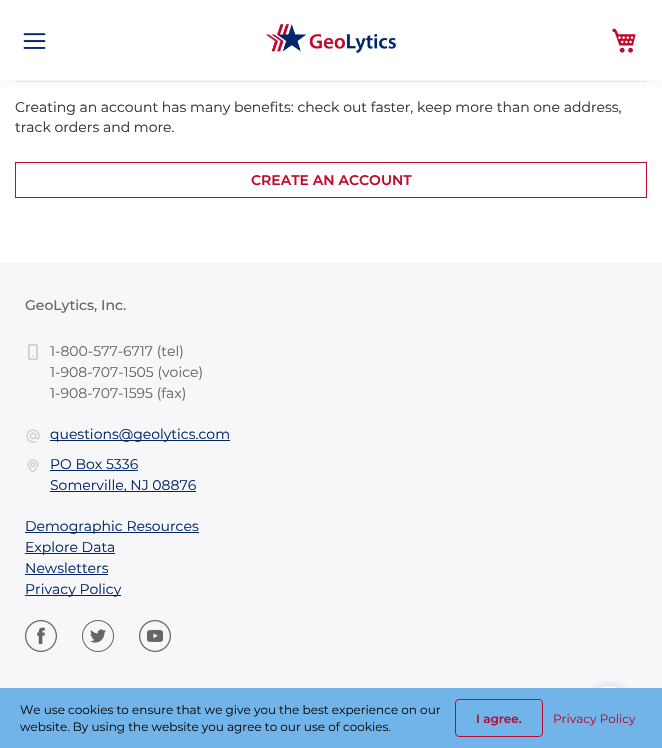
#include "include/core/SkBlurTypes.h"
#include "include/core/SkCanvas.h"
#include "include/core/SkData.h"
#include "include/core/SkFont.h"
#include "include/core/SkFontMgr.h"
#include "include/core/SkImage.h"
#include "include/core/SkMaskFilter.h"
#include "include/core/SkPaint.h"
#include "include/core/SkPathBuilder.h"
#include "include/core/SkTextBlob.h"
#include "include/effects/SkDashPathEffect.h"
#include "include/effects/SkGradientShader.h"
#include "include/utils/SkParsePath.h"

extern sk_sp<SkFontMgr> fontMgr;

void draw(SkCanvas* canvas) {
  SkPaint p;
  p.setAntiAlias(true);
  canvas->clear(SK_ColorWHITE);
  p.setColor(SkColorSetRGB(232, 232, 232));
  canvas->drawRect(SkRect::MakeLTRB(15, 81, 647, 82), p);
  p.setColor(SkColorSetARGB(10, 0, 39, 104));
  p.setMaskFilter(SkMaskFilter::MakeBlur(kNormal_SkBlurStyle, 4.5f));
  canvas->drawRect(SkRect::MakeLTRB(0, 4, 662, 84), p);
  p.setMaskFilter(nullptr);
  p.setColor(SK_ColorWHITE);
  canvas->drawRect(SkRect::MakeLTRB(0, 1, 662, 80), p);
  canvas->drawImageRect(SkImages::DeferredFromEncodedData(SkData::MakeFromFileName("images/1.png")), SkRect::MakeLTRB(23, 33, 46, 49), SkSamplingOptions());
  canvas->drawImageRect(SkImages::DeferredFromEncodedData(SkData::MakeFromFileName("images/2.png")), SkRect::MakeLTRB(266, 24, 396, 53), SkSamplingOptions());
  canvas->drawImageRect(SkImages::DeferredFromEncodedData(SkData::MakeFromFileName("images/3.png")), SkRect::MakeLTRB(612, 28, 636, 53), SkSamplingOptions());
  p.setStyle(SkPaint::kStroke_Style);
  p.setStrokeWidth(1);
  p.setColor(SkColorSetRGB(190, 10, 47));
  canvas->drawRect(SkRect::MakeLTRB(15.5f, 162.5f, 646.5f, 197.5f), p);
  p.setStyle(SkPaint::kFill_Style);
  p.setColor(SkColorSetRGB(247, 247, 250));
  canvas->drawRect(SkRect::MakeLTRB(0, 263, 662, 688), p);
  canvas->drawImageRect(SkImages::DeferredFromEncodedData(SkData::MakeFromFileName("images/4.png")), SkRect::MakeLTRB(28, 344, 38, 360), SkSamplingOptions());
  canvas->drawImageRect(SkImages::DeferredFromEncodedData(SkData::MakeFromFileName("images/5.png")), SkRect::MakeLTRB(26, 429, 40, 443), SkSamplingOptions());
  p.setColor(SkColorSetRGB(0, 39, 104));
  canvas->drawRect(SkRect::MakeLTRB(50, 440, 230, 441), p);
  canvas->drawImageRect(SkImages::DeferredFromEncodedData(SkData::MakeFromFileName("images/6.png")), SkRect::MakeLTRB(27, 459, 39, 473), SkSamplingOptions());
  canvas->drawRect(SkRect::MakeLTRB(50, 470, 138, 471), p);
  canvas->drawRect(SkRect::MakeLTRB(50, 491, 196, 492), p);
  canvas->drawRect(SkRect::MakeLTRB(25, 532, 199, 533), p);
  canvas->drawRect(SkRect::MakeLTRB(25, 553, 115, 554), p);
  canvas->drawRect(SkRect::MakeLTRB(25, 574, 108, 575), p);
  canvas->drawRect(SkRect::MakeLTRB(25, 595, 121, 596), p);
  canvas->drawImageRect(SkImages::DeferredFromEncodedData(SkData::MakeFromFileName("images/7.png")), SkRect::MakeLTRB(25, 620, 57, 652), SkSamplingOptions());
  canvas->drawImageRect(SkImages::DeferredFromEncodedData(SkData::MakeFromFileName("images/8.png")), SkRect::MakeLTRB(82, 620, 114, 652), SkSamplingOptions());
  canvas->drawImageRect(SkImages::DeferredFromEncodedData(SkData::MakeFromFileName("images/9.png")), SkRect::MakeLTRB(139, 620, 171, 652), SkSamplingOptions());
  canvas->drawImageRect(SkImages::DeferredFromEncodedData(SkData::MakeFromFileName("images/10.png")), SkRect::MakeLTRB(591, 681, 627, 688), SkSamplingOptions());
  p.setColor(SkColorSetRGB(112, 180, 233));
  canvas->drawRect(SkRect::MakeLTRB(0, 688, 662, 748), p);
  p.setStyle(SkPaint::kStroke_Style);
  p.setColor(SkColorSetRGB(190, 10, 47));
  canvas->drawRoundRect(SkRect::MakeLTRB(455.5f, 699.5f, 542.5f, 736.5f), 3.5f, 3.5f, p);
  SkFont font1(fontMgr->matchFamilyStyle("Montserrat", SkFontStyle::Normal()), 14);
  font1.setSubpixel(true);
  p.setStyle(SkPaint::kFill_Style);
  p.setColor(SkColorSetRGB(51, 51, 51));
  canvas->drawString("Creating an account has many benefits: check out faster, keep more than one address,", 15, 112, font1, p);
  canvas->drawString("track orders and more.", 15, 132, font1, p);
  SkFont font2(fontMgr->matchFamilyStyle("Montserrat", SkFontStyle(600, SkFontStyle::kNormal_Width, SkFontStyle::kUpright_Slant)), 14);
  font2.setSubpixel(true);
  p.setColor(SkColorSetRGB(190, 10, 47));
  canvas->drawString("CREATE AN ACCOUNT", 251, 185, font2, p);
  SkFont font3(fontMgr->matchFamilyStyle("Montserrat", SkFontStyle(500, SkFontStyle::kNormal_Width, SkFontStyle::kUpright_Slant)), 14);
  font3.setSubpixel(true);
  p.setColor(SkColorSetRGB(102, 102, 102));
  canvas->drawString("GeoLytics, Inc.", 25, 310, font3, p);
  canvas->drawString("1-800-577-6717 (tel)", 50, 356, font1, p);
  canvas->drawString("1-908-707-1505 (voice)", 50, 377, font1, p);
  canvas->drawString("1-908-707-1595 (fax)", 50, 398, font1, p);
  p.setColor(SkColorSetRGB(0, 39, 104));
  canvas->drawString("questions@geolytics.com", 50, 439, font1, p);
  canvas->drawString("PO Box 5336", 50, 469, font1, p);
  canvas->drawString("Somerville, NJ 08876", 50, 490, font1, p);
  canvas->drawString("Demographic Resources", 25, 531, font1, p);
  canvas->drawString("Explore Data", 25, 552, font1, p);
  canvas->drawString("Newsletters", 25, 573, font1, p);
  canvas->drawString("Privacy Policy", 25, 594, font1, p);
  SkFont font4(fontMgr->matchFamilyStyle("Montserrat", SkFontStyle::Normal()), 12);
  font4.setSubpixel(true);
  p.setColor(SkColorSetRGB(13, 12, 13));
  canvas->drawString("We use cookies to ensure that we give you the best experience on our", 20, 714, font4, p);
  canvas->drawString("website. By using the website you agree to our use of cookies.", 20, 731, font4, p);
  SkFont font5(fontMgr->matchFamilyStyle("Montserrat", SkFontStyle(600, SkFontStyle::kNormal_Width, SkFontStyle::kUpright_Slant)), 12);
  font5.setSubpixel(true);
  p.setColor(SkColorSetRGB(190, 10, 47));
  canvas->drawString("I agree.", 476, 723, font5, p);
  canvas->drawString("Privacy Policy", 553, 723, font4, p);
}
